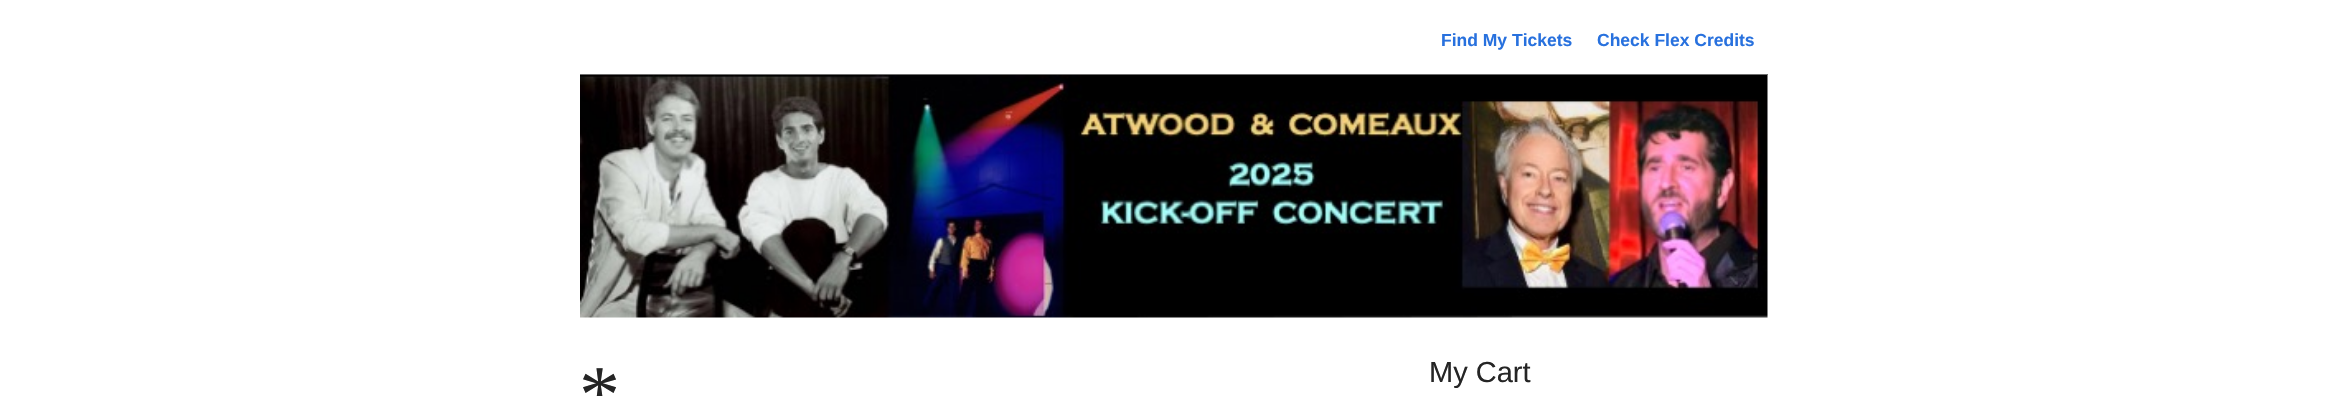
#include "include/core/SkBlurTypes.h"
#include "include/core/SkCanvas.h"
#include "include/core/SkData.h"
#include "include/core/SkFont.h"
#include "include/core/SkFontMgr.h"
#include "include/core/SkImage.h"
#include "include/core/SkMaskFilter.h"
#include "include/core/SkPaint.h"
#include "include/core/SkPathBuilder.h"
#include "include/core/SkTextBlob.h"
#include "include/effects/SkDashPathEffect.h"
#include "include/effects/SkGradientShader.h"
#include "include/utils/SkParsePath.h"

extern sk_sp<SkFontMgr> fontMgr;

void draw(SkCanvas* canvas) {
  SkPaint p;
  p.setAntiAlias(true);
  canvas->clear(SK_ColorWHITE);
  p.setColor(SkColorSetRGB(109, 109, 109));
  canvas->drawRect(SkRect::MakeLTRB(580, 74, 1768, 75), p);
  canvas->drawImageRect(SkImages::DeferredFromEncodedData(SkData::MakeFromFileName("images/1.png")), SkRect::MakeLTRB(580, 75, 1768, 318), SkSamplingOptions());
  SkFont font1(fontMgr->matchFamilyStyle("Liberation Sans", SkFontStyle::Bold()), 17.5f);
  font1.setSubpixel(true);
  p.setColor(SkColorSetRGB(40, 113, 222));
  canvas->drawString("Find My Tickets", 1441, 46, font1, p);
  canvas->drawString("Check Flex Credits", 1597, 46, font1, p);
  SkFont font2(fontMgr->matchFamilyStyle("Liberation Serif", SkFontStyle::Normal()), 82);
  font2.setSubpixel(true);
  p.setColor(SkColorSetRGB(37, 37, 37));
  canvas->drawString("*", 579, 422, font2, p);
  SkFont font3(fontMgr->matchFamilyStyle("Liberation Sans", SkFontStyle::Normal()), 29);
  font3.setSubpixel(true);
  canvas->drawString("My Cart", 1429, 382, font3, p);
}
